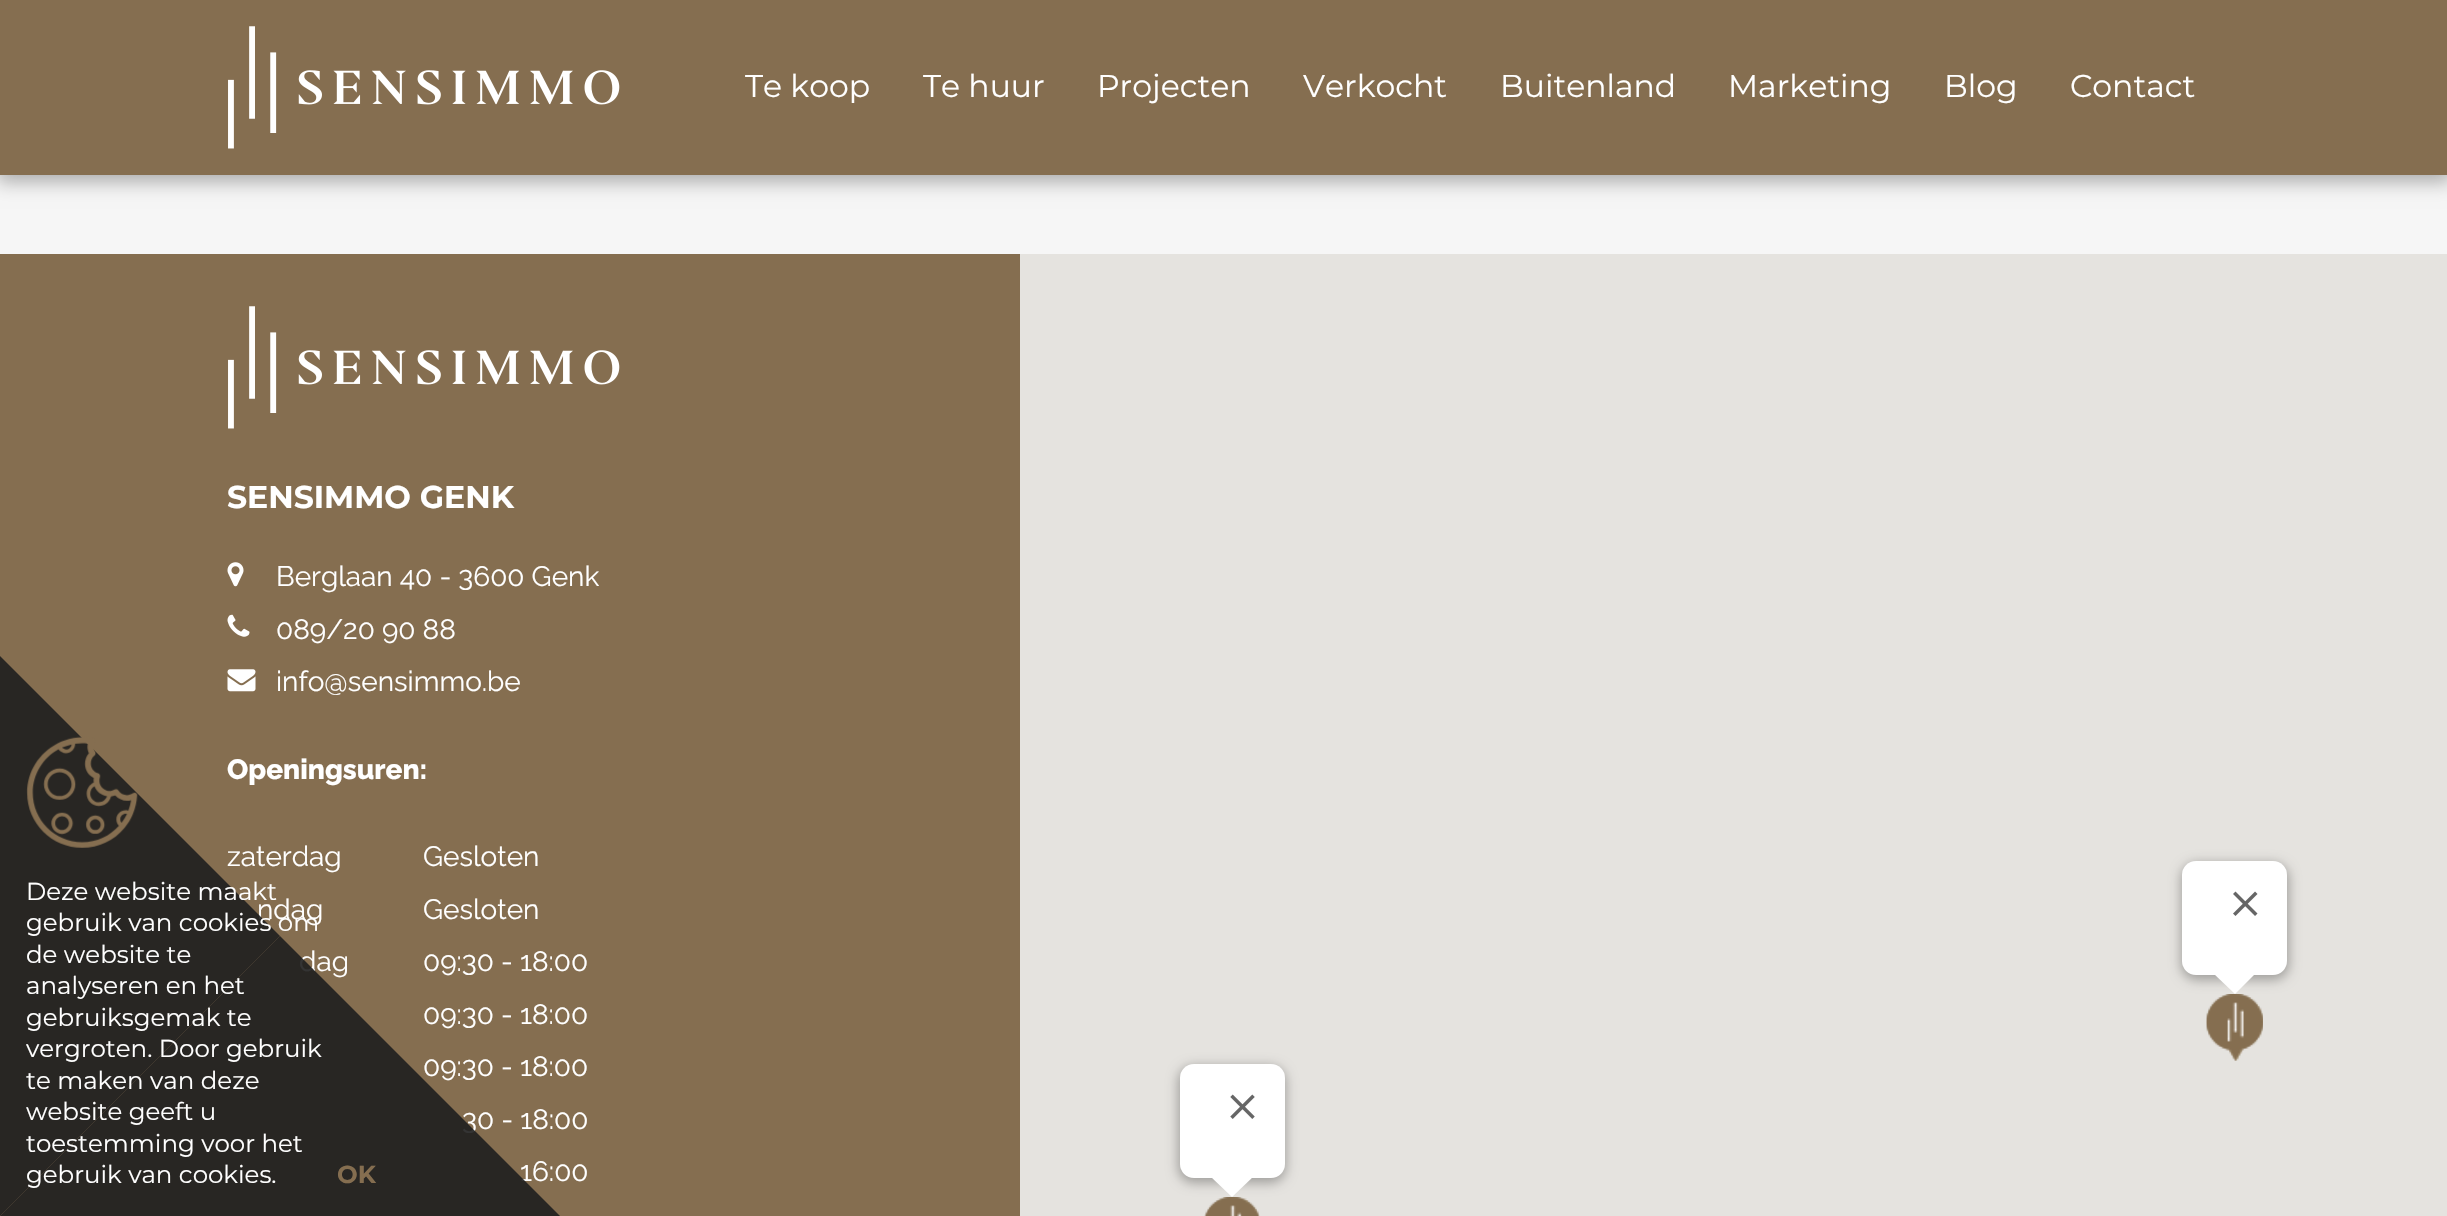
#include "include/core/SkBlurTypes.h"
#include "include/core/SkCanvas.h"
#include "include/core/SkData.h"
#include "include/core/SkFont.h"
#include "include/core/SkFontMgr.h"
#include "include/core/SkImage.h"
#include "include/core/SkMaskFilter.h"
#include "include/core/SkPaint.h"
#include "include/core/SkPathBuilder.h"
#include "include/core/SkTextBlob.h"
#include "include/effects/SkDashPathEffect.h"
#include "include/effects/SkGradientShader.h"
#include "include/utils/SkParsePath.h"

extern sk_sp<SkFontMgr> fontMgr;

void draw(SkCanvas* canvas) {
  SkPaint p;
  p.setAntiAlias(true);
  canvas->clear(SkColorSetRGB(246, 246, 246));
  p.setColor(SkColorSetARGB(77, 0, 0, 0));
  p.setMaskFilter(SkMaskFilter::MakeBlur(kNormal_SkBlurStyle, 9));
  canvas->drawRect(SkRect::MakeLTRB(-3, 0, 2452, 182), p);
  p.setMaskFilter(nullptr);
  p.setColor(SkColorSetRGB(133, 110, 80));
  canvas->drawRect(SkRect::MakeLTRB(0, 0, 2447, 175), p);
  canvas->drawImageRect(SkImages::DeferredFromEncodedData(SkData::MakeFromFileName("images/1.png")), SkRect::MakeLTRB(228, 26, 620, 149), SkSamplingOptions());
  canvas->drawRect(SkRect::MakeLTRB(0, 254, 1020, 1216), p);
  canvas->drawImageRect(SkImages::DeferredFromEncodedData(SkData::MakeFromFileName("images/1.png")), SkRect::MakeLTRB(228, 306, 620, 429), SkSamplingOptions());
  canvas->drawImageRect(SkImages::DeferredFromEncodedData(SkData::MakeFromFileName("images/3.png")), SkRect::MakeLTRB(227, 562, 244, 587), SkSamplingOptions());
  canvas->drawImageRect(SkImages::DeferredFromEncodedData(SkData::MakeFromFileName("images/4.png")), SkRect::MakeLTRB(227, 614, 250, 637), SkSamplingOptions());
  canvas->drawImageRect(SkImages::DeferredFromEncodedData(SkData::MakeFromFileName("images/5.png")), SkRect::MakeLTRB(227, 669, 256, 692), SkSamplingOptions());
  p.setColor(SkColorSetRGB(229, 227, 223));
  canvas->drawRect(SkRect::MakeLTRB(1020, 254, 2447, 1216), p);
  canvas->drawImageRect(SkImages::DeferredFromEncodedData(SkData::MakeFromFileName("images/8.png")), SkRect::MakeLTRB(2206, 994, 2263, 1061), SkSamplingOptions());
  canvas->drawImageRect(SkImages::DeferredFromEncodedData(SkData::MakeFromFileName("images/9.png")), SkRect::MakeLTRB(2206, 994, 2263, 1061), SkSamplingOptions());
  p.setColor(SkColorSetARGB(77, 0, 0, 0));
  p.setMaskFilter(SkMaskFilter::MakeBlur(kNormal_SkBlurStyle, 6));
  canvas->drawRoundRect(SkRect::MakeLTRB(2181, 863, 2289, 980), 16, 16, p);
  p.setMaskFilter(nullptr);
  p.setColor(SK_ColorWHITE);
  canvas->drawRoundRect(SkRect::MakeLTRB(2182, 861, 2287, 975), 14, 14, p);
  canvas->drawImageRect(SkImages::DeferredFromEncodedData(SkData::MakeFromFileName("images/6.png")), SkRect::MakeLTRB(2233, 891, 2258, 916), SkSamplingOptions());
  canvas->drawPath(SkPathBuilder().moveTo(2214, 973).lineTo(2214, 974).lineTo(2235, 994).lineTo(2256, 973).close().detach(), p);
  canvas->drawImageRect(SkImages::DeferredFromEncodedData(SkData::MakeFromFileName("images/10.png")), SkRect::MakeLTRB(1204, 1197, 1260, 1216), SkSamplingOptions());
  canvas->drawImageRect(SkImages::DeferredFromEncodedData(SkData::MakeFromFileName("images/11.png")), SkRect::MakeLTRB(1204, 1197, 1260, 1216), SkSamplingOptions());
  p.setColor(SkColorSetARGB(77, 0, 0, 0));
  p.setMaskFilter(SkMaskFilter::MakeBlur(kNormal_SkBlurStyle, 6));
  canvas->drawRoundRect(SkRect::MakeLTRB(1178, 1066, 1286, 1183), 16, 16, p);
  p.setMaskFilter(nullptr);
  p.setColor(SK_ColorWHITE);
  canvas->drawRoundRect(SkRect::MakeLTRB(1180, 1064, 1285, 1178), 14, 14, p);
  canvas->drawImageRect(SkImages::DeferredFromEncodedData(SkData::MakeFromFileName("images/7.png")), SkRect::MakeLTRB(1230, 1094, 1255, 1119), SkSamplingOptions());
  canvas->drawPath(SkPathBuilder().moveTo(1211, 1176).lineTo(1211, 1177).lineTo(1232, 1197).lineTo(1254, 1176).close().detach(), p);
  SkFont font1(fontMgr->matchFamilyStyle("Montserrat", SkFontStyle::Normal()), 31.5f);
  font1.setSubpixel(true);
  canvas->drawString("Te koop", 745, 97, font1, p);
  canvas->drawString("Te huur", 923, 97, font1, p);
  canvas->drawString("Projecten", 1097, 97, font1, p);
  canvas->drawString("Verkocht", 1303, 97, font1, p);
  canvas->drawString("Buitenland", 1500, 97, font1, p);
  canvas->drawString("Marketing", 1728, 97, font1, p);
  canvas->drawString("Blog", 1944, 97, font1, p);
  canvas->drawString("Contact", 2070, 97, font1, p);
  SkFont font2(fontMgr->matchFamilyStyle("Montserrat", SkFontStyle::Bold()), 31.5f);
  font2.setSubpixel(true);
  canvas->drawString("SENSIMMO GENK", 227, 508, font2, p);
  SkFont font3(fontMgr->matchFamilyStyle("Raleway", SkFontStyle::Normal()), 28);
  font3.setSubpixel(true);
  canvas->drawString("Berglaan 40 - 3600 Genk", 276, 586, font3, p);
  canvas->drawString("089/20 90 88", 276, 639, font3, p);
  canvas->drawString("info@sensimmo.be", 276, 691, font3, p);
  SkFont font4(fontMgr->matchFamilyStyle("Raleway", SkFontStyle(800, SkFontStyle::kNormal_Width, SkFontStyle::kUpright_Slant)), 28);
  font4.setSubpixel(true);
  canvas->drawString("Openingsuren:", 227, 779, font4, p);
  canvas->drawString("zaterdag", 227, 866, font3, p);
  canvas->drawString("Gesloten", 423, 866, font3, p);
  canvas->drawString("ndag", 257, 919, font3, p);
  canvas->drawString("Gesloten", 423, 919, font3, p);
  canvas->drawString("dag", 299, 971, font3, p);
  canvas->drawString("09:30 - 18:00", 423, 971, font3, p);
  canvas->drawString("09:30 - 18:00", 423, 1024, font3, p);
  canvas->drawString("09:30 - 18:00", 423, 1076, font3, p);
  canvas->drawString("30 - 18:00", 462, 1129, font3, p);
  canvas->drawString("16:00", 520, 1181, font3, p);
  p.setColor(SkColorSetARGB(230, 30, 30, 30));
  canvas->drawPath(SkPathBuilder().moveTo(560, 1216).lineTo(0, 1216).lineTo(280, 936).close().detach(), p);
  canvas->drawPath(SkPathBuilder().moveTo(0, 1216).lineTo(0, 656).lineTo(280, 936).close().detach(), p);
  canvas->drawImageRect(SkImages::DeferredFromEncodedData(SkData::MakeFromFileName("images/2.png")), SkRect::MakeLTRB(26, 736, 138, 848), SkSamplingOptions());
  SkFont font5(fontMgr->matchFamilyStyle("Montserrat", SkFontStyle::Bold()), 24.5f);
  font5.setSubpixel(true);
  p.setColor(SkColorSetRGB(133, 110, 80));
  canvas->drawString("OK", 337, 1183, font5, p);
  SkFont font6(fontMgr->matchFamilyStyle("Montserrat", SkFontStyle::Normal()), 24.5f);
  font6.setSubpixel(true);
  p.setColor(SK_ColorWHITE);
  canvas->drawString("gebruik van cookies.", 26, 1183, font6, p);
  canvas->drawString("toestemming voor het", 26, 1152, font6, p);
  canvas->drawString("website geeft u", 26, 1120, font6, p);
  canvas->drawString("te maken van deze", 26, 1089, font6, p);
  canvas->drawString("vergroten. Door gebruik", 26, 1057, font6, p);
  canvas->drawString("gebruiksgemak te", 26, 1026, font6, p);
  canvas->drawString("analyseren en het", 26, 994, font6, p);
  canvas->drawString("de website te", 26, 963, font6, p);
  canvas->drawString("gebruik van cookies om", 26, 931, font6, p);
  canvas->drawString("Deze website maakt", 26, 900, font6, p);
}
